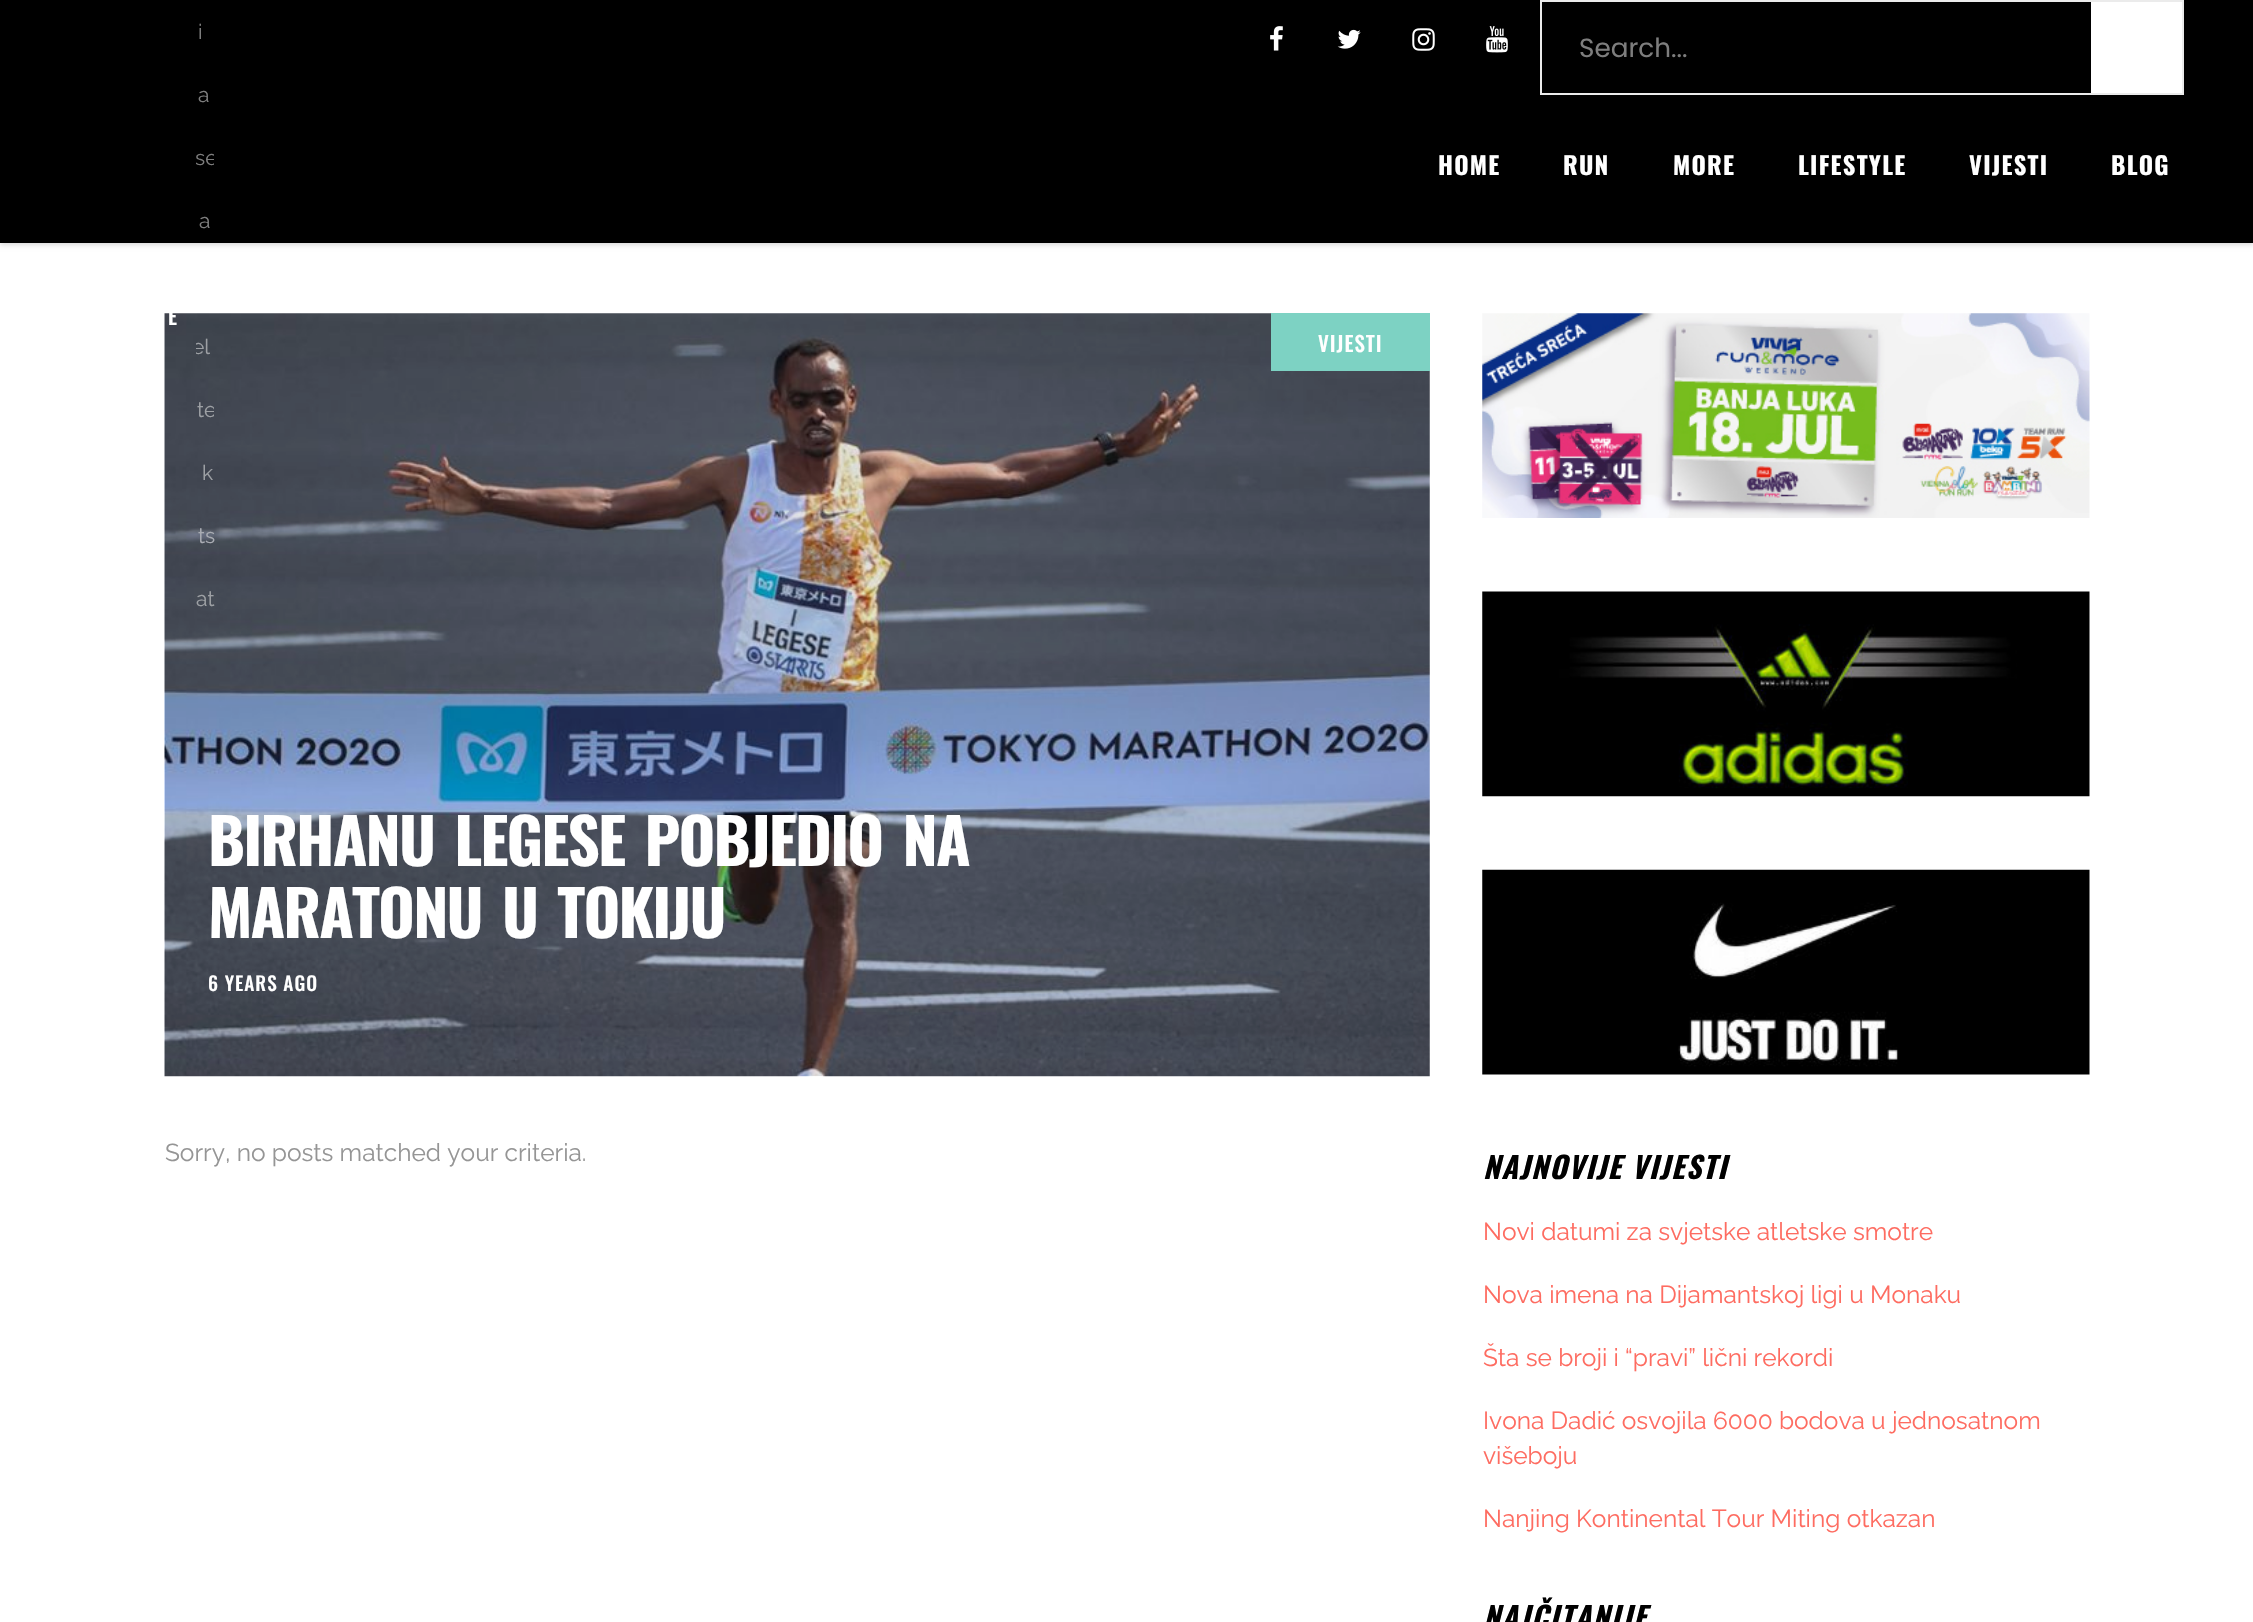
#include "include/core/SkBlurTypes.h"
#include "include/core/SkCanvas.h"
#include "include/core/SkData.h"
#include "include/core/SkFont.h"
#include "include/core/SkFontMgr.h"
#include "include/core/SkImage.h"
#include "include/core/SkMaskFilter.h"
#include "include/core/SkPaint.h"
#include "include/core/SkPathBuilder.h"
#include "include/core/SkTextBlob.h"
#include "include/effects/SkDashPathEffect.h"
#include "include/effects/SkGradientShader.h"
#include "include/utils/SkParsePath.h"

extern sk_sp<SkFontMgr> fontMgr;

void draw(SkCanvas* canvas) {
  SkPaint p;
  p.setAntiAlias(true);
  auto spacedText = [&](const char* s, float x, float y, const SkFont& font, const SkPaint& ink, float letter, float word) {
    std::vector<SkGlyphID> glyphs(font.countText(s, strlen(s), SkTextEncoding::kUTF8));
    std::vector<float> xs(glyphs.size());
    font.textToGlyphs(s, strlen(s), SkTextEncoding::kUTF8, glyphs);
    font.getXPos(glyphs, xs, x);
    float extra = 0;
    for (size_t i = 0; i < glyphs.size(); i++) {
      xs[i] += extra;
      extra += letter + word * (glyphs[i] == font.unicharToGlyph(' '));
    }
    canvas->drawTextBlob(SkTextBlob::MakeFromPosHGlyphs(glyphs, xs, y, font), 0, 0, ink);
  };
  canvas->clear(SK_ColorWHITE);
  p.setColor(SkColorSetARGB(38, 0, 0, 0));
  p.setMaskFilter(SkMaskFilter::MakeBlur(kNormal_SkBlurStyle, 2.5f));
  canvas->drawRect(SkRect::MakeLTRB(0, 88, 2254, 245), p);
  p.setMaskFilter(nullptr);
  p.setColor(SK_ColorBLACK);
  canvas->drawRect(SkRect::MakeLTRB(0, 0, 2253, 243), p);
  canvas->drawImageRect(SkImages::DeferredFromEncodedData(SkData::MakeFromFileName("images/1.png")), SkRect::MakeLTRB(1270, 26, 1283, 51), SkSamplingOptions());
  canvas->drawImageRect(SkImages::DeferredFromEncodedData(SkData::MakeFromFileName("images/2.png")), SkRect::MakeLTRB(1337, 29, 1361, 49), SkSamplingOptions());
  canvas->drawImageRect(SkImages::DeferredFromEncodedData(SkData::MakeFromFileName("images/3.png")), SkRect::MakeLTRB(1412, 28, 1435, 51), SkSamplingOptions());
  canvas->drawImageRect(SkImages::DeferredFromEncodedData(SkData::MakeFromFileName("images/4.png")), SkRect::MakeLTRB(1486, 26, 1508, 53), SkSamplingOptions());
  p.setStyle(SkPaint::kStroke_Style);
  p.setStrokeWidth(2);
  p.setColor(SkColorSetRGB(235, 235, 235));
  canvas->drawRect(SkRect::MakeLTRB(1541, 1, 2183, 94), p);
  p.setStyle(SkPaint::kFill_Style);
  p.setColor(SK_ColorWHITE);
  canvas->drawRect(SkRect::MakeLTRB(2091, 2, 2182, 93), p);
  canvas->drawImageRect(SkImages::DeferredFromEncodedData(SkData::MakeFromFileName("images/5.png")), SkRect::MakeLTRB(164, 313, 1430, 1077), SkSamplingOptions());
  p.setColor(SkColorSetRGB(125, 210, 195));
  canvas->drawRect(SkRect::MakeLTRB(1271, 313, 1430, 371), p);
  canvas->drawImageRect(SkImages::DeferredFromEncodedData(SkData::MakeFromFileName("images/6.png")), SkRect::MakeLTRB(1482, 313, 2090, 518), SkSamplingOptions());
  canvas->drawImageRect(SkImages::DeferredFromEncodedData(SkData::MakeFromFileName("images/7.png")), SkRect::MakeLTRB(1482, 591, 2090, 797), SkSamplingOptions());
  canvas->drawImageRect(SkImages::DeferredFromEncodedData(SkData::MakeFromFileName("images/8.png")), SkRect::MakeLTRB(1482, 869, 2090, 1075), SkSamplingOptions());
  SkFont font1(fontMgr->matchFamilyStyle("Oswald", SkFontStyle(500, SkFontStyle::kNormal_Width, SkFontStyle::kUpright_Slant)), 21);
  font1.setSubpixel(true);
  p.setColor(SK_ColorWHITE);
  spacedText("E", 168, 325, font1, p, 2, 0);
  SkFont font2(fontMgr->matchFamilyStyle("Raleway", SkFontStyle::Normal()), 21);
  font2.setSubpixel(true);
  p.setColor(SkColorSetRGB(125, 125, 125));
  canvas->drawString("i", 198, 39, font2, p);
  canvas->drawString("a", 198, 102, font2, p);
  canvas->save();
  canvas->clipRect(SkRect::MakeLTRB(196, 0, 214, 630));
  canvas->drawString("se", 195, 165, font2, p);
  canvas->restore();
  canvas->drawString("a", 199, 228, font2, p);
  canvas->save();
  canvas->clipRect(SkRect::MakeLTRB(196, 0, 214, 630));
  p.setColor(SkColorSetRGB(157, 160, 164));
  canvas->drawString("el", 192, 354, font2, p);
  canvas->drawString("te", 197, 417, font2, p);
  canvas->restore();
  canvas->drawString("k", 202, 480, font2, p);
  p.setColor(SkColorSetRGB(169, 172, 179));
  canvas->drawString("ts", 198, 543, font2, p);
  p.setColor(SkColorSetRGB(157, 160, 164));
  canvas->drawString("at", 196, 606, font2, p);
  SkFont font3(fontMgr->matchFamilyStyle("Poppins", SkFontStyle::Normal()), 26.25f);
  font3.setSubpixel(true);
  p.setColor(SkColorSetRGB(125, 125, 125));
  canvas->drawString("Search...", 1579, 57, font3, p);
  SkFont font4(fontMgr->matchFamilyStyle("Oswald", SkFontStyle::Bold()), 24.5f);
  font4.setSubpixel(true);
  p.setColor(SK_ColorWHITE);
  spacedText("HOME", 1438, 175, font4, p, 1.25f, 0);
  spacedText("RUN", 1563, 175, font4, p, 1.25f, 0);
  spacedText("MORE", 1673, 175, font4, p, 1.25f, 0);
  spacedText("LIFESTYLE", 1798, 175, font4, p, 1.25f, 0);
  spacedText("VIJESTI", 1969, 175, font4, p, 1.25f, 0);
  spacedText("BLOG", 2111, 175, font4, p, 1.25f, 0);
  spacedText("VIJESTI", 1318, 352, font1, p, 1, 0);
  SkFont font5(fontMgr->matchFamilyStyle("Oswald", SkFontStyle::Bold()), 63);
  font5.setSubpixel(true);
  spacedText("BIRHANU LEGESE POBJEDIO NA", 208, 866, font5, p, -1.9f, 6);
  spacedText("MARATONU U TOKIJU", 208, 938, font5, p, -1.9f, 6);
  SkFont font6(fontMgr->matchFamilyStyle("Oswald", SkFontStyle(500, SkFontStyle::kNormal_Width, SkFontStyle::kUpright_Slant)), 19.25f);
  font6.setSubpixel(true);
  spacedText("6 YEARS AGO", 208, 991, font6, p, 1, 0);
  SkFont font7(fontMgr->matchFamilyStyle("Raleway", SkFontStyle::Normal()), 24.5f);
  font7.setSubpixel(true);
  p.setColor(SkColorSetRGB(149, 149, 149));
  canvas->drawString("Sorry, no posts matched your criteria.", 165, 1161, font7, p);
  SkFont font8(fontMgr->matchFamilyStyle("Oswald", SkFontStyle::BoldItalic()), 29.75f);
  font8.setSubpixel(true);
  p.setColor(SK_ColorBLACK);
  spacedText("NAJNOVIJE VIJESTI", 1483, 1179, font8, p, 1.5f, 0);
  p.setColor(SkColorSetRGB(254, 108, 97));
  canvas->drawString("Novi datumi za svjetske atletske smotre", 1483, 1240, font7, p);
  canvas->drawString("Nova imena na Dijamantskoj ligi u Monaku", 1483, 1303, font7, p);
  canvas->drawString("Šta se broji i “pravi” lični rekordi", 1483, 1366, font7, p);
  canvas->drawString("Ivona Dadić osvojila 6000 bodova u jednosatnom", 1483, 1429, font7, p);
  canvas->drawString("višeboju", 1483, 1464, font7, p);
  canvas->drawString("Nanjing Kontinental Tour Miting otkazan", 1483, 1527, font7, p);
  p.setColor(SK_ColorBLACK);
  spacedText("NAJČITANIJE", 1483, 1629, font8, p, 1.5f, 0);
}
